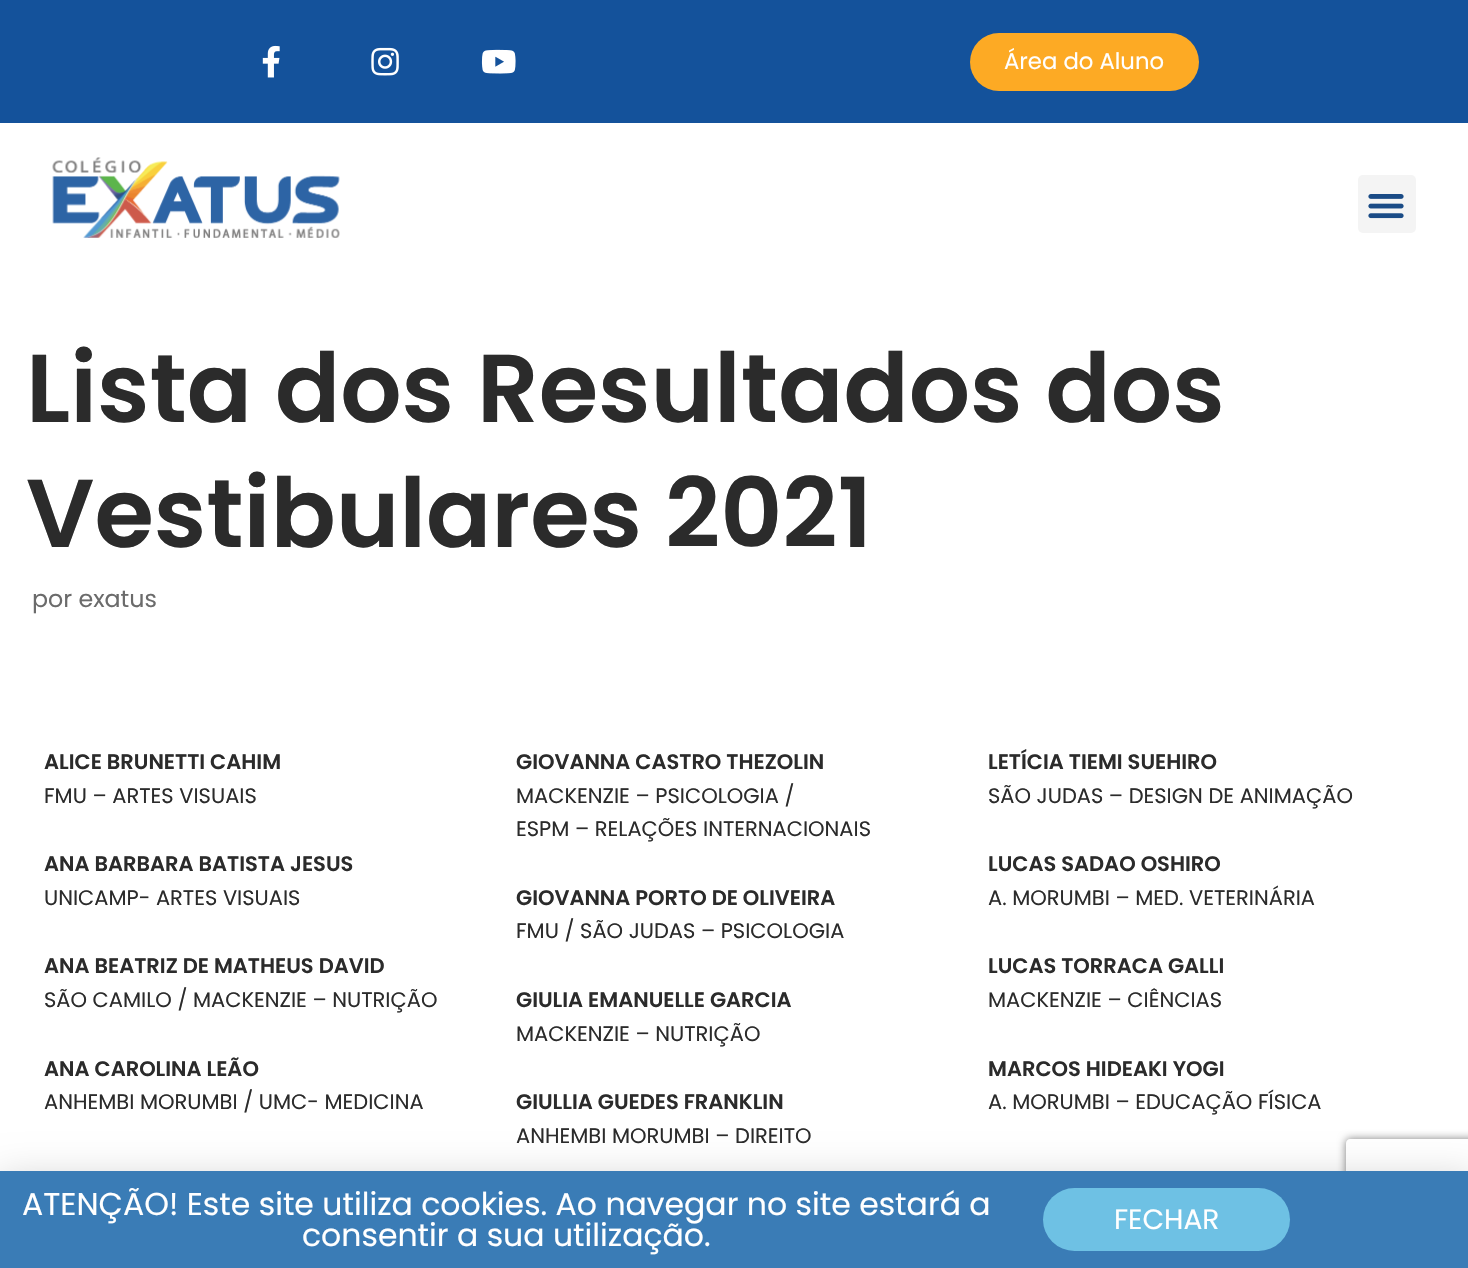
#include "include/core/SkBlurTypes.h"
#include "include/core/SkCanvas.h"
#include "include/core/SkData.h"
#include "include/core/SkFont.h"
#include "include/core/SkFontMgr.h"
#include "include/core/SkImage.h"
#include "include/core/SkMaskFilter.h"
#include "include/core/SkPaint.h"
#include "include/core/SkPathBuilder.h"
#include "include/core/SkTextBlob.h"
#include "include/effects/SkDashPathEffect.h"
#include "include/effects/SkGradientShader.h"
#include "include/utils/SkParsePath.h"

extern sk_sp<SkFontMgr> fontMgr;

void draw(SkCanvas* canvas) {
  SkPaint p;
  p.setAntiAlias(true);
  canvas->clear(SK_ColorWHITE);
  p.setColor(SkColorSetRGB(20, 82, 155));
  canvas->drawRect(SkRect::MakeLTRB(0, 0, 1468, 123), p);
  canvas->drawImageRect(SkImages::DeferredFromEncodedData(SkData::MakeFromFileName("images/1.png")), SkRect::MakeLTRB(262, 45, 280, 78), SkSamplingOptions());
  canvas->drawImageRect(SkImages::DeferredFromEncodedData(SkData::MakeFromFileName("images/2.png")), SkRect::MakeLTRB(371, 47, 399, 76), SkSamplingOptions());
  canvas->drawImageRect(SkImages::DeferredFromEncodedData(SkData::MakeFromFileName("images/3.png")), SkRect::MakeLTRB(481, 49, 516, 74), SkSamplingOptions());
  p.setColor(SkColorSetRGB(253, 170, 36));
  canvas->drawRoundRect(SkRect::MakeLTRB(970, 33, 1199, 91), 29, 29, p);
  canvas->drawImageRect(SkImages::DeferredFromEncodedData(SkData::MakeFromFileName("images/4.png")), SkRect::MakeLTRB(52, 157, 340, 238), SkSamplingOptions());
  p.setColor(SkColorSetRGB(244, 244, 244));
  canvas->drawRoundRect(SkRect::MakeLTRB(1358, 175, 1416, 233), 5, 5, p);
  canvas->drawImageRect(SkImages::DeferredFromEncodedData(SkData::MakeFromFileName("images/5.png")), SkRect::MakeLTRB(1368, 194, 1404, 219), SkSamplingOptions());
  canvas->save();
  canvas->clipPath(SkPathBuilder(SkPathFillType::kEvenOdd).moveTo(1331, 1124).lineTo(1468, 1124).lineTo(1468, 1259).lineTo(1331, 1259).close().moveTo(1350, 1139).lineTo(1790, 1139).cubicTo(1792, 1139, 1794, 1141, 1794, 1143).lineTo(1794, 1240).cubicTo(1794, 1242, 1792, 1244, 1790, 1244).lineTo(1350, 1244).cubicTo(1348, 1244, 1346, 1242, 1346, 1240).lineTo(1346, 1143).cubicTo(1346, 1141, 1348, 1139, 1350, 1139).close().detach(), true);
  p.setColor(SkColorSetRGB(128, 128, 128));
  p.setMaskFilter(SkMaskFilter::MakeBlur(kNormal_SkBlurStyle, 4.5f));
  canvas->drawRoundRect(SkRect::MakeLTRB(1346, 1139, 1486, 1244), 4, 4, p);
  p.setMaskFilter(nullptr);
  canvas->restore();
  p.setColor(SkColorSetARGB(51, 0, 0, 0));
  p.setMaskFilter(SkMaskFilter::MakeBlur(kNormal_SkBlurStyle, 20));
  canvas->drawRect(SkRect::MakeLTRB(-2, 1180, 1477, 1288), p);
  p.setMaskFilter(nullptr);
  p.setColor(SkColorSetRGB(58, 124, 182));
  canvas->drawRect(SkRect::MakeLTRB(0, 1171, 1468, 1268), p);
  p.setColor(SkColorSetRGB(110, 193, 228));
  canvas->drawRoundRect(SkRect::MakeLTRB(1043, 1188, 1290, 1251), 31.5f, 31.5f, p);
  SkFont font1(fontMgr->matchFamilyStyle("Poppins", SkFontStyle::Normal()), 22.75f);
  font1.setSubpixel(true);
  p.setColor(SK_ColorWHITE);
  canvas->drawString("Área do Aluno", 1004, 69, font1, p);
  SkFont font2(fontMgr->matchFamilyStyle("Poppins", SkFontStyle(600, SkFontStyle::kNormal_Width, SkFontStyle::kUpright_Slant)), 96.25f);
  font2.setSubpixel(true);
  p.setColor(SkColorSetRGB(43, 43, 43));
  canvas->drawString("Lista dos Resultados dos", 26, 422, font2, p);
  canvas->drawString("Vestibulares 2021", 26, 547, font2, p);
  SkFont font3(fontMgr->matchFamilyStyle("Poppins", SkFontStyle::Normal()), 23.75f);
  font3.setSubpixel(true);
  p.setColor(SkColorSetRGB(107, 107, 107));
  canvas->drawString("por exatus", 32, 607, font3, p);
  SkFont font4(fontMgr->matchFamilyStyle("Poppins", SkFontStyle(600, SkFontStyle::kNormal_Width, SkFontStyle::kUpright_Slant)), 21);
  font4.setSubpixel(true);
  p.setColor(SkColorSetRGB(43, 43, 43));
  canvas->drawString("ALICE BRUNETTI CAHIM", 44, 769, font4, p);
  SkFont font5(fontMgr->matchFamilyStyle("Poppins", SkFontStyle::Normal()), 21);
  font5.setSubpixel(true);
  canvas->drawString("FMU – ARTES VISUAIS", 44, 803, font5, p);
  canvas->drawString("ANA BARBARA BATISTA JESUS", 44, 871, font4, p);
  canvas->drawString("UNICAMP- ARTES VISUAIS", 44, 905, font5, p);
  canvas->drawString("ANA BEATRIZ DE MATHEUS DAVID", 44, 973, font4, p);
  canvas->drawString("SÃO CAMILO / MACKENZIE – NUTRIÇÃO", 44, 1007, font5, p);
  canvas->drawString("ANA CAROLINA LEÃO", 44, 1076, font4, p);
  canvas->drawString("ANHEMBI MORUMBI / UMC- MEDICINA", 44, 1109, font5, p);
  canvas->drawString("GIOVANNA CASTRO THEZOLIN", 516, 769, font4, p);
  canvas->drawString("MACKENZIE – PSICOLOGIA /", 516, 803, font5, p);
  canvas->drawString("ESPM – RELAÇÕES INTERNACIONAIS", 516, 836, font5, p);
  canvas->drawString("GIOVANNA PORTO DE OLIVEIRA", 516, 905, font4, p);
  canvas->drawString("FMU / SÃO JUDAS – PSICOLOGIA", 516, 938, font5, p);
  canvas->drawString("GIULIA EMANUELLE GARCIA", 516, 1007, font4, p);
  canvas->drawString("MACKENZIE – NUTRIÇÃO", 516, 1041, font5, p);
  canvas->drawString("GIULLIA GUEDES FRANKLIN", 516, 1109, font4, p);
  canvas->drawString("ANHEMBI MORUMBI – DIREITO", 516, 1143, font5, p);
  canvas->drawString("LETÍCIA TIEMI SUEHIRO", 988, 769, font4, p);
  canvas->drawString("SÃO JUDAS – DESIGN DE ANIMAÇÃO", 988, 803, font5, p);
  canvas->drawString("LUCAS SADAO OSHIRO", 988, 871, font4, p);
  canvas->drawString("A. MORUMBI – MED. VETERINÁRIA", 988, 905, font5, p);
  canvas->drawString("LUCAS TORRACA GALLI", 988, 973, font4, p);
  canvas->drawString("MACKENZIE – CIÊNCIAS", 988, 1007, font5, p);
  canvas->drawString("MARCOS HIDEAKI YOGI", 988, 1076, font4, p);
  canvas->drawString("A. MORUMBI – EDUCAÇÃO FÍSICA", 988, 1109, font5, p);
  SkFont font6(fontMgr->matchFamilyStyle("Poppins", SkFontStyle::Normal()), 31.5f);
  font6.setSubpixel(true);
  p.setColor(SK_ColorWHITE);
  canvas->drawString("ATENÇÃO! Este site utiliza cookies. Ao navegar no site estará a", 22, 1215, font6, p);
  canvas->drawString("consentir a sua utilização.", 302, 1246, font6, p);
  SkFont font7(fontMgr->matchFamilyStyle("Poppins", SkFontStyle::Normal()), 28);
  font7.setSubpixel(true);
  canvas->drawString("FECHAR", 1114, 1229, font7, p);
}
